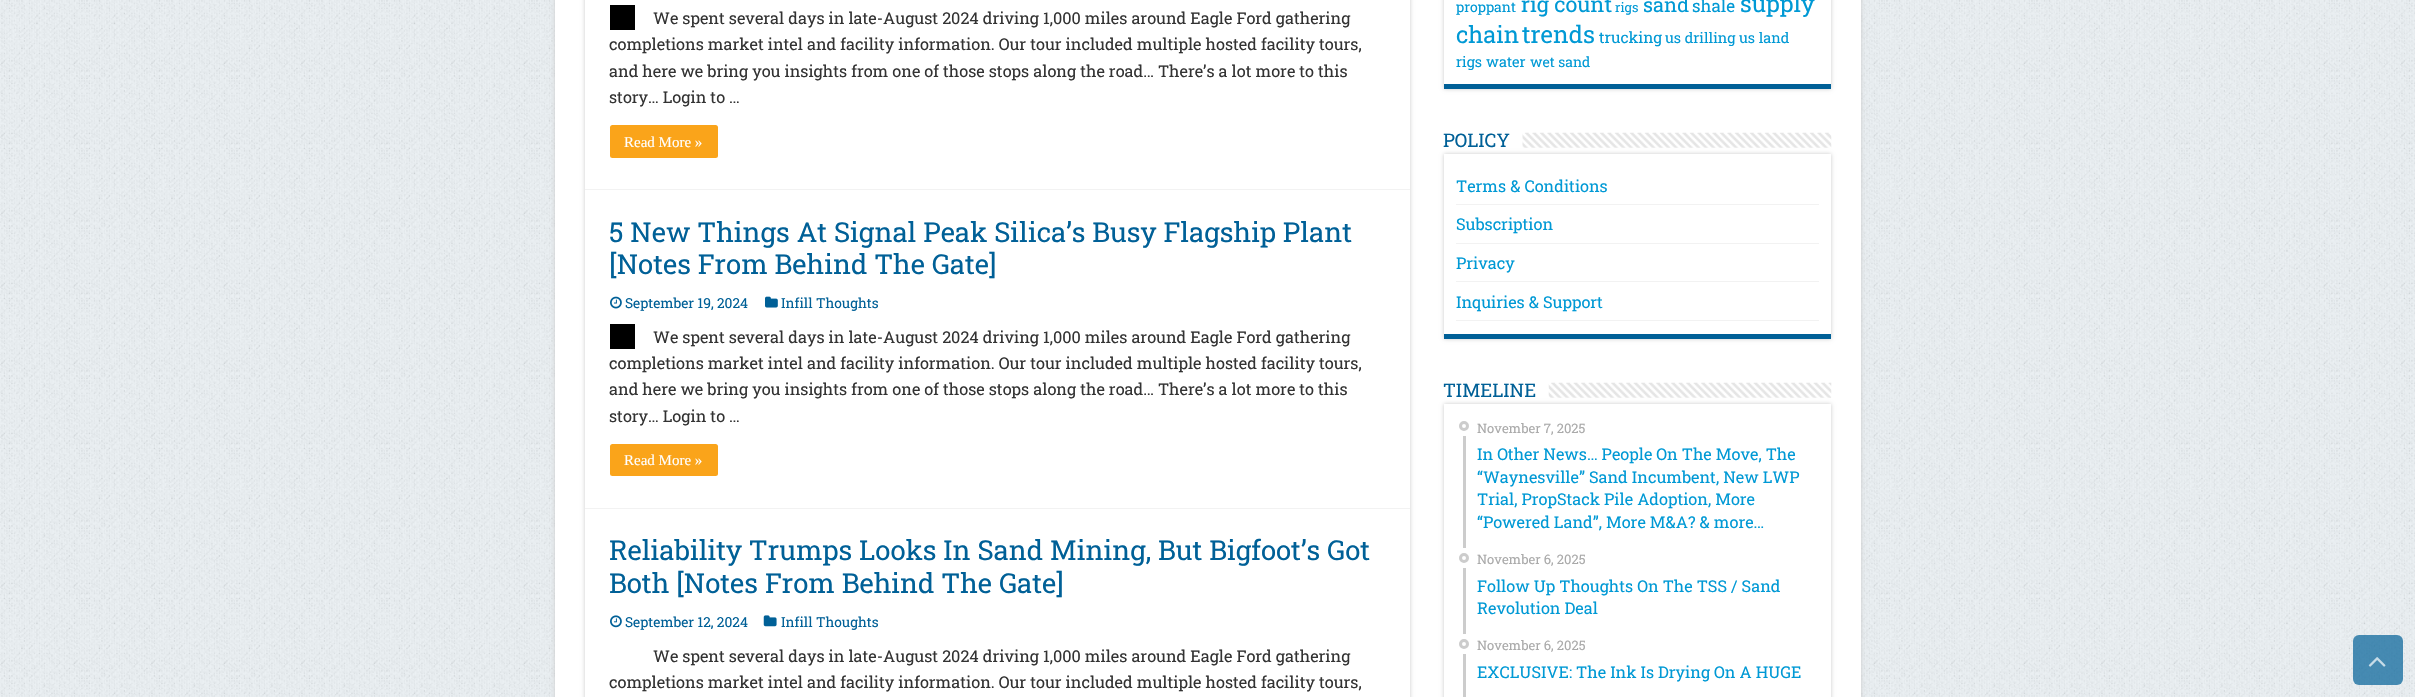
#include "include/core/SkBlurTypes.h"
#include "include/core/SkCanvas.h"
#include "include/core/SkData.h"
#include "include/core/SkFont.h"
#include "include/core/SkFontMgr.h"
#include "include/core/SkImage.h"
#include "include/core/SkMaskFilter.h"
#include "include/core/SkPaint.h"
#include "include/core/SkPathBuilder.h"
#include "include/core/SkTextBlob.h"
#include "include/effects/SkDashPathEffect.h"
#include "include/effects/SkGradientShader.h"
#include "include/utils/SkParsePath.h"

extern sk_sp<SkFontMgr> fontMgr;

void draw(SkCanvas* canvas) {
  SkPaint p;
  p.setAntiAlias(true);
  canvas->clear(SkColorSetRGB(238, 244, 248));
  canvas->drawImageRect(SkImages::DeferredFromEncodedData(SkData::MakeFromFileName("images/1.png")), SkRect::MakeLTRB(0, 0, 2415, 697), SkSamplingOptions());
  p.setColor(SkColorSetRGB(202, 202, 202));
  p.setMaskFilter(SkMaskFilter::MakeBlur(kNormal_SkBlurStyle, 2));
  canvas->drawRect(SkRect::MakeLTRB(555, -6, 1861, 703), p);
  p.setMaskFilter(nullptr);
  p.setColor(SK_ColorWHITE);
  canvas->drawRect(SkRect::MakeLTRB(555, 0, 1861, 697), p);
  canvas->save();
  canvas->clipPath(SkPathBuilder(SkPathFillType::kEvenOdd).moveTo(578, 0).lineTo(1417, 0).lineTo(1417, 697).lineTo(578, 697).close().moveTo(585, -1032).lineTo(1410, -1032).lineTo(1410, 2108).lineTo(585, 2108).close().detach(), true);
  p.setColor(SkColorSetRGB(202, 202, 202));
  p.setMaskFilter(SkMaskFilter::MakeBlur(kNormal_SkBlurStyle, 2));
  canvas->drawRect(SkRect::MakeLTRB(585, -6, 1410, 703), p);
  p.setMaskFilter(nullptr);
  canvas->restore();
  p.setColor(SkColorSetRGB(242, 242, 242));
  canvas->drawRect(SkRect::MakeLTRB(585, 189, 1410, 190), p);
  p.setColor(SK_ColorBLACK);
  canvas->drawRect(SkRect::MakeLTRB(610, 5, 635, 30), p);
  p.setColor(SkColorSetRGB(250, 164, 26));
  canvas->drawRoundRect(SkRect::MakeLTRB(610, 125, 718, 158), 2.5f, 2.5f, p);
  p.setColor(SkColorSetRGB(242, 242, 242));
  canvas->drawRect(SkRect::MakeLTRB(585, 508, 1410, 509), p);
  canvas->drawImageRect(SkImages::DeferredFromEncodedData(SkData::MakeFromFileName("images/2.png")), SkRect::MakeLTRB(610, 296, 622, 309), SkSamplingOptions());
  canvas->drawImageRect(SkImages::DeferredFromEncodedData(SkData::MakeFromFileName("images/3.png")), SkRect::MakeLTRB(765, 296, 778, 308), SkSamplingOptions());
  p.setColor(SK_ColorBLACK);
  canvas->drawRect(SkRect::MakeLTRB(610, 324, 635, 349), p);
  p.setColor(SkColorSetRGB(250, 164, 26));
  canvas->drawRoundRect(SkRect::MakeLTRB(610, 444, 718, 476), 2.5f, 2.5f, p);
  canvas->drawImageRect(SkImages::DeferredFromEncodedData(SkData::MakeFromFileName("images/4.png")), SkRect::MakeLTRB(610, 615, 622, 628), SkSamplingOptions());
  canvas->drawImageRect(SkImages::DeferredFromEncodedData(SkData::MakeFromFileName("images/5.png")), SkRect::MakeLTRB(763, 615, 777, 627), SkSamplingOptions());
  p.setColor(SkColorSetRGB(202, 202, 202));
  p.setMaskFilter(SkMaskFilter::MakeBlur(kNormal_SkBlurStyle, 2));
  canvas->drawRect(SkRect::MakeLTRB(1444, -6, 1831, 89), p);
  p.setMaskFilter(nullptr);
  p.setColor(SK_ColorWHITE);
  canvas->drawRect(SkRect::MakeLTRB(1444, 0, 1831, 84), p);
  p.setColor(SkColorSetRGB(0, 96, 151));
  canvas->drawRect(SkRect::MakeLTRB(1444, 84, 1831, 89), p);
  p.setColor(SkColorSetRGB(202, 202, 202));
  p.setMaskFilter(SkMaskFilter::MakeBlur(kNormal_SkBlurStyle, 2));
  canvas->drawRect(SkRect::MakeLTRB(1444, 154, 1831, 339), p);
  p.setMaskFilter(nullptr);
  canvas->drawImageRect(SkImages::DeferredFromEncodedData(SkData::MakeFromFileName("images/6.png")), SkRect::MakeLTRB(1522, 132, 1832, 148), SkSamplingOptions());
  p.setColor(SK_ColorWHITE);
  canvas->drawRect(SkRect::MakeLTRB(1444, 154, 1831, 334), p);
  p.setColor(SkColorSetRGB(0, 96, 151));
  canvas->drawRect(SkRect::MakeLTRB(1444, 334, 1831, 339), p);
  p.setColor(SkColorSetRGB(242, 242, 242));
  canvas->drawRect(SkRect::MakeLTRB(1456, 204, 1819, 205), p);
  canvas->drawRect(SkRect::MakeLTRB(1456, 243, 1819, 244), p);
  canvas->drawRect(SkRect::MakeLTRB(1456, 281, 1819, 282), p);
  canvas->drawRect(SkRect::MakeLTRB(1456, 320, 1819, 321), p);
  canvas->save();
  canvas->clipPath(SkPathBuilder(SkPathFillType::kEvenOdd).moveTo(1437, 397).lineTo(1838, 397).lineTo(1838, 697).lineTo(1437, 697).close().moveTo(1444, 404).lineTo(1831, 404).lineTo(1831, 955).lineTo(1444, 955).close().detach(), true);
  p.setColor(SkColorSetRGB(202, 202, 202));
  p.setMaskFilter(SkMaskFilter::MakeBlur(kNormal_SkBlurStyle, 2));
  canvas->drawRect(SkRect::MakeLTRB(1444, 404, 1831, 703), p);
  p.setMaskFilter(nullptr);
  canvas->restore();
  canvas->drawImageRect(SkImages::DeferredFromEncodedData(SkData::MakeFromFileName("images/7.png")), SkRect::MakeLTRB(1548, 382, 1832, 398), SkSamplingOptions());
  p.setStyle(SkPaint::kStroke_Style);
  p.setStrokeWidth(3);
  p.setColor(SkColorSetRGB(204, 204, 204));
  canvas->drawCircle(1464, 426, 3.5f, p);
  p.setStyle(SkPaint::kFill_Style);
  canvas->drawRect(SkRect::MakeLTRB(1463, 436, 1466, 548), p);
  p.setStyle(SkPaint::kStroke_Style);
  canvas->drawCircle(1464, 558, 3.5f, p);
  p.setStyle(SkPaint::kFill_Style);
  canvas->drawRect(SkRect::MakeLTRB(1463, 568, 1466, 634), p);
  p.setStyle(SkPaint::kStroke_Style);
  canvas->drawCircle(1464, 644, 3.5f, p);
  p.setStyle(SkPaint::kFill_Style);
  canvas->drawRect(SkRect::MakeLTRB(1463, 654, 1466, 697), p);
  p.setColor(SkColorSetARGB(179, 0, 96, 151));
  canvas->drawRoundRect(SkRect::MakeLTRB(2353, 635, 2403, 685), 6, 6, p);
  canvas->drawImageRect(SkImages::DeferredFromEncodedData(SkData::MakeFromFileName("images/8.png")), SkRect::MakeLTRB(2368, 657, 2386, 667), SkSamplingOptions());
  SkFont font1(fontMgr->matchFamilyStyle("Roboto Slab", SkFontStyle::Normal()), 16.25f);
  font1.setSubpixel(true);
  p.setColor(SkColorSetRGB(51, 51, 51));
  canvas->drawString("We spent several days in late-August 2024 driving 1,000 miles around Eagle Ford gathering", 653, 24, font1, p);
  canvas->drawString("completions market intel and facility information. Our tour included multiple hosted facility tours,", 609, 50, font1, p);
  canvas->drawString("and here we bring you insights from one of those stops along the road… There’s a lot more to this", 609, 77, font1, p);
  canvas->drawString("story… Login to …", 609, 103, font1, p);
  SkFont font2(fontMgr->matchFamilyStyle("Liberation Serif", SkFontStyle::Normal()), 15);
  font2.setSubpixel(true);
  p.setColor(SK_ColorWHITE);
  canvas->drawString("Read More »", 624, 147, font2, p);
  SkFont font3(fontMgr->matchFamilyStyle("Roboto Slab", SkFontStyle::Normal()), 27.5f);
  font3.setSubpixel(true);
  p.setColor(SkColorSetRGB(0, 96, 151));
  canvas->drawString("5 New Things At Signal Peak Silica’s Busy Flagship Plant", 609, 242, font3, p);
  canvas->drawString("[Notes From Behind The Gate]", 609, 274, font3, p);
  SkFont font4(fontMgr->matchFamilyStyle("Roboto Slab", SkFontStyle::Normal()), 13.75f);
  font4.setSubpixel(true);
  canvas->drawString("September 19, 2024", 625, 308, font4, p);
  canvas->drawString("Infill Thoughts", 781, 308, font4, p);
  p.setColor(SkColorSetRGB(51, 51, 51));
  canvas->drawString("We spent several days in late-August 2024 driving 1,000 miles around Eagle Ford gathering", 653, 343, font1, p);
  canvas->drawString("completions market intel and facility information. Our tour included multiple hosted facility tours,", 609, 369, font1, p);
  canvas->drawString("and here we bring you insights from one of those stops along the road… There’s a lot more to this", 609, 395, font1, p);
  canvas->drawString("story… Login to …", 609, 422, font1, p);
  p.setColor(SK_ColorWHITE);
  canvas->drawString("Read More »", 624, 465, font2, p);
  p.setColor(SkColorSetRGB(0, 96, 151));
  canvas->drawString("Reliability Trumps Looks In Sand Mining, But Bigfoot’s Got", 609, 560, font3, p);
  canvas->drawString("Both [Notes From Behind The Gate]", 609, 593, font3, p);
  canvas->drawString("September 12, 2024", 625, 627, font4, p);
  canvas->drawString("Infill Thoughts", 781, 627, font4, p);
  p.setColor(SkColorSetRGB(51, 51, 51));
  canvas->drawString("We spent several days in late-August 2024 driving 1,000 miles around Eagle Ford gathering", 653, 662, font1, p);
  canvas->drawString("completions market intel and facility information. Our tour included multiple hosted facility tours,", 609, 688, font1, p);
  SkFont font5(fontMgr->matchFamilyStyle("Roboto Slab", SkFontStyle::Normal()), 14);
  font5.setSubpixel(true);
  p.setColor(SkColorSetRGB(0, 153, 213));
  canvas->drawString("proppant", 1456, 12, font5, p);
  SkFont font6(fontMgr->matchFamilyStyle("Roboto Slab", SkFontStyle::Normal()), 21.5f);
  font6.setSubpixel(true);
  canvas->drawString("rig count", 1521, 12, font6, p);
  SkFont font7(fontMgr->matchFamilyStyle("Roboto Slab", SkFontStyle::Normal()), 13);
  font7.setSubpixel(true);
  canvas->drawString("rigs", 1615, 12, font7, p);
  SkFont font8(fontMgr->matchFamilyStyle("Roboto Slab", SkFontStyle::Normal()), 20);
  font8.setSubpixel(true);
  canvas->drawString("sand", 1643, 12, font8, p);
  SkFont font9(fontMgr->matchFamilyStyle("Roboto Slab", SkFontStyle::Normal()), 17);
  font9.setSubpixel(true);
  canvas->drawString("shale", 1692, 12, font9, p);
  SkFont font10(fontMgr->matchFamilyStyle("Roboto Slab", SkFontStyle::Normal()), 23.5f);
  font10.setSubpixel(true);
  canvas->drawString("supply", 1740, 12, font10, p);
  canvas->drawString("chain", 1456, 43, font10, p);
  SkFont font11(fontMgr->matchFamilyStyle("Roboto Slab", SkFontStyle::Normal()), 24);
  font11.setSubpixel(true);
  canvas->drawString("trends", 1522, 43, font11, p);
  SkFont font12(fontMgr->matchFamilyStyle("Roboto Slab", SkFontStyle::Normal()), 15.5f);
  font12.setSubpixel(true);
  canvas->drawString("trucking", 1599, 43, font12, p);
  SkFont font13(fontMgr->matchFamilyStyle("Roboto Slab", SkFontStyle::Normal()), 14.5f);
  font13.setSubpixel(true);
  canvas->drawString("us drilling", 1665, 43, font13, p);
  canvas->drawString("us land", 1739, 43, font13, p);
  canvas->drawString("rigs", 1456, 67, font13, p);
  canvas->drawString("water", 1486, 67, font13, p);
  canvas->drawString("wet sand", 1530, 67, font5, p);
  SkFont font14(fontMgr->matchFamilyStyle("Roboto Slab", SkFontStyle::Normal()), 18.75f);
  font14.setSubpixel(true);
  p.setColor(SkColorSetRGB(0, 96, 151));
  canvas->drawString("POLICY", 1443, 147, font14, p);
  p.setColor(SkColorSetRGB(0, 153, 213));
  canvas->drawString("Terms & Conditions", 1456, 192, font1, p);
  canvas->drawString("Subscription", 1456, 230, font1, p);
  canvas->drawString("Privacy", 1456, 269, font1, p);
  canvas->drawString("Inquiries & Support", 1456, 308, font1, p);
  p.setColor(SkColorSetRGB(0, 96, 151));
  canvas->drawString("TIMELINE", 1443, 397, font14, p);
  p.setColor(SkColorSetRGB(170, 170, 170));
  canvas->drawString("November 7, 2025", 1477, 433, font7, p);
  p.setColor(SkColorSetRGB(0, 153, 213));
  canvas->drawString("In Other News… People On The Move, The", 1477, 460, font1, p);
  canvas->drawString("“Waynesville” Sand Incumbent, New LWP", 1477, 483, font1, p);
  canvas->drawString("Trial, PropStack Pile Adoption, More", 1477, 505, font1, p);
  canvas->drawString("“Powered Land”, More M&A? & more…", 1477, 528, font1, p);
  p.setColor(SkColorSetRGB(170, 170, 170));
  canvas->drawString("November 6, 2025", 1477, 564, font7, p);
  p.setColor(SkColorSetRGB(0, 153, 213));
  canvas->drawString("Follow Up Thoughts On The TSS / Sand", 1477, 592, font1, p);
  canvas->drawString("Revolution Deal", 1477, 614, font1, p);
  p.setColor(SkColorSetRGB(170, 170, 170));
  canvas->drawString("November 6, 2025", 1477, 650, font7, p);
  p.setColor(SkColorSetRGB(0, 153, 213));
  canvas->drawString("EXCLUSIVE: The Ink Is Drying On A HUGE", 1477, 678, font1, p);
}
